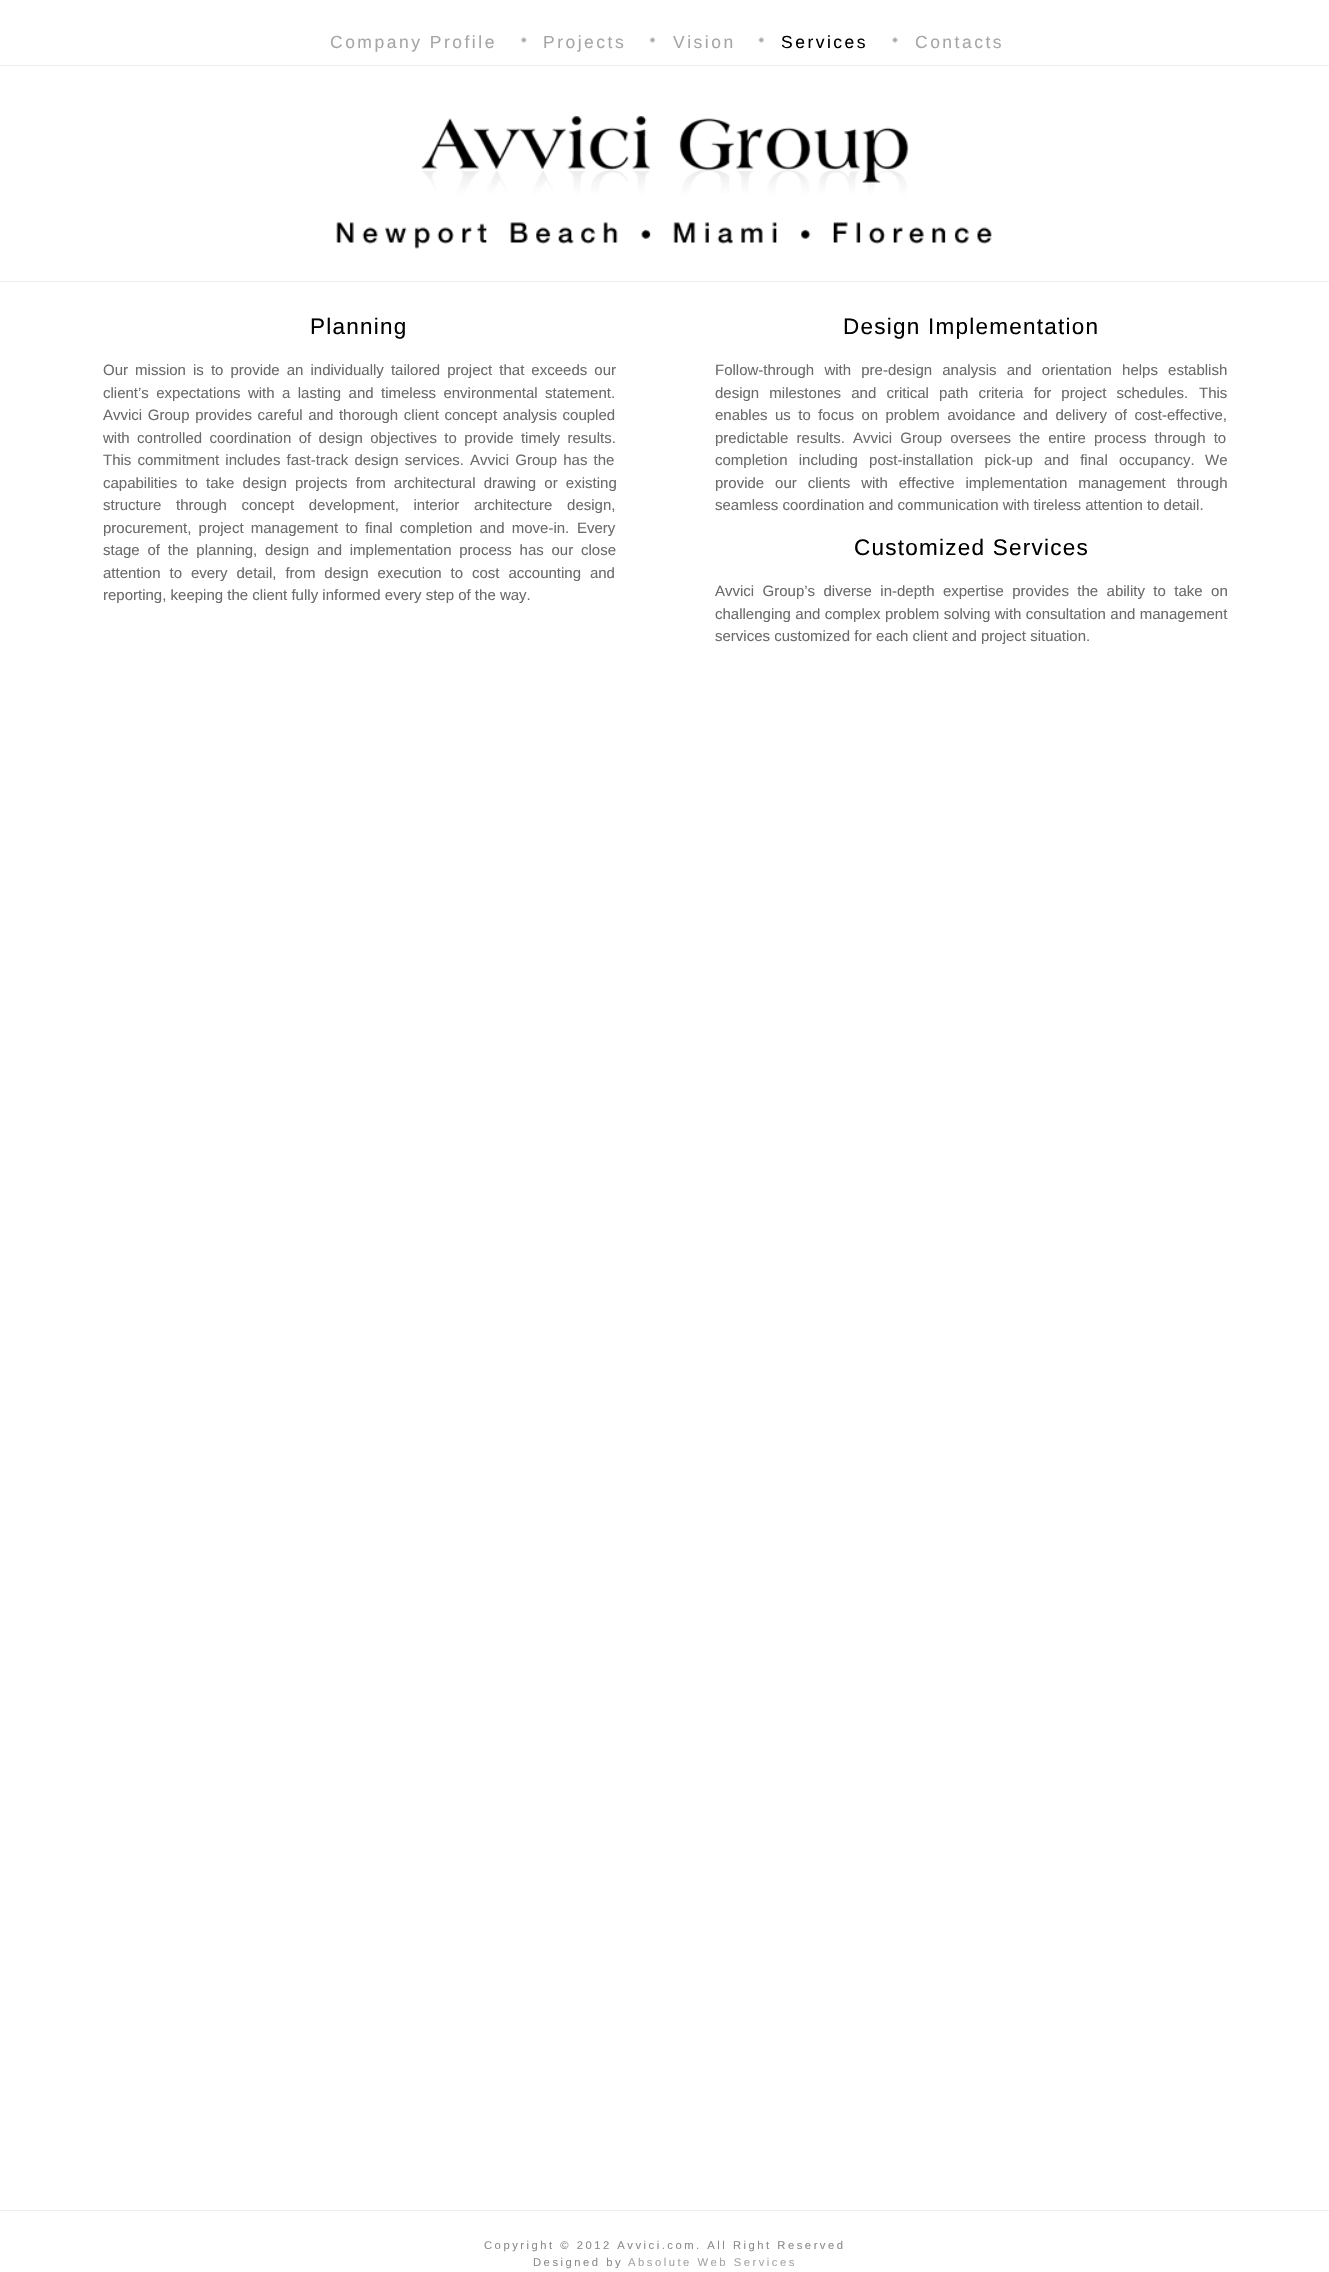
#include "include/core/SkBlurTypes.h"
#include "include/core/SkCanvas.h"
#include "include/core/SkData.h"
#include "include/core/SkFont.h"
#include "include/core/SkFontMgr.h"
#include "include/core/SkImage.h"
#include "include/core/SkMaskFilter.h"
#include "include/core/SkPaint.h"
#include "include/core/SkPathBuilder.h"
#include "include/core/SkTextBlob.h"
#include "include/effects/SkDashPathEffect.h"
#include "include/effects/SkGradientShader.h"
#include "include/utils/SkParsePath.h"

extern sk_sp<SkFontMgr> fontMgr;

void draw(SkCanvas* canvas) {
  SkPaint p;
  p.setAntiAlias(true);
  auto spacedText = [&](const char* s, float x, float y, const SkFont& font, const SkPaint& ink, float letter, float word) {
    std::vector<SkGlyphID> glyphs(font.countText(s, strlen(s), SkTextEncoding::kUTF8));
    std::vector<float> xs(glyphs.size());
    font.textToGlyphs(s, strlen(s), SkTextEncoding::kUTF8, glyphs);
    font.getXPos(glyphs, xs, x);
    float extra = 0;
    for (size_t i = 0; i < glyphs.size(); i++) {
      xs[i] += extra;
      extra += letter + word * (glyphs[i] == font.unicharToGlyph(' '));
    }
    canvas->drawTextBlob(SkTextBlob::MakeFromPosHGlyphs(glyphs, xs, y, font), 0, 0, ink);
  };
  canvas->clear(SK_ColorWHITE);
  p.setColor(SkColorSetRGB(237, 237, 237));
  canvas->drawRect(SkRect::MakeLTRB(0, 281, 1329, 282), p);
  canvas->drawRect(SkRect::MakeLTRB(0, 65, 1329, 66), p);
  canvas->drawImageRect(SkImages::DeferredFromEncodedData(SkData::MakeFromFileName("images/1.png")), SkRect::MakeLTRB(521, 37, 527, 43), SkSamplingOptions());
  canvas->drawImageRect(SkImages::DeferredFromEncodedData(SkData::MakeFromFileName("images/2.png")), SkRect::MakeLTRB(650, 37, 655, 43), SkSamplingOptions());
  canvas->drawImageRect(SkImages::DeferredFromEncodedData(SkData::MakeFromFileName("images/3.png")), SkRect::MakeLTRB(758, 37, 764, 43), SkSamplingOptions());
  canvas->drawImageRect(SkImages::DeferredFromEncodedData(SkData::MakeFromFileName("images/4.png")), SkRect::MakeLTRB(892, 37, 898, 43), SkSamplingOptions());
  canvas->drawImageRect(SkImages::DeferredFromEncodedData(SkData::MakeFromFileName("images/5.png")), SkRect::MakeLTRB(336, 116, 992, 249), SkSamplingOptions());
  canvas->drawRect(SkRect::MakeLTRB(0, 2210, 1329, 2211), p);
  SkFont font1(fontMgr->matchFamilyStyle("Liberation Sans", SkFontStyle::Normal()), 17.5f);
  font1.setSubpixel(true);
  p.setColor(SkColorSetRGB(167, 166, 166));
  spacedText("Company Profile", 330, 48, font1, p, 2.5f, 0);
  spacedText("Projects", 543, 48, font1, p, 2.5f, 0);
  spacedText("Vision", 673, 48, font1, p, 2.5f, 0);
  p.setColor(SK_ColorBLACK);
  spacedText("Services", 781, 48, font1, p, 2.5f, 0);
  p.setColor(SkColorSetRGB(167, 166, 166));
  spacedText("Contacts", 915, 48, font1, p, 2.5f, 0);
  SkFont font2(fontMgr->matchFamilyStyle("Liberation Sans", SkFontStyle::Normal()), 22.5f);
  font2.setSubpixel(true);
  p.setColor(SK_ColorBLACK);
  spacedText("Planning", 310, 334, font2, p, 1.25f, 0);
  SkFont font3(fontMgr->matchFamilyStyle("Liberation Sans", SkFontStyle::Normal()), 15);
  font3.setSubpixel(true);
  p.setColor(SkColorSetRGB(107, 107, 107));
  spacedText("Our mission is to provide an individually tailored project that exceeds our", 103, 375, font3, p, 0, 2.9f);
  spacedText("client’s expectations with a lasting and timeless environmental statement.", 103, 398, font3, p, 0, 3.25f);
  spacedText("Avvici Group provides careful and thorough client concept analysis coupled", 103, 420, font3, p, 0, 1.5f);
  spacedText("with controlled coordination of design objectives to provide timely results.", 103, 443, font3, p, 0, 3.25f);
  spacedText("This commitment includes fast-track design services.", 103, 465, font3, p, 0, 2);
  spacedText("Avvici Group has the", 470, 465, font3, p, 0, 2);
  spacedText("capabilities to take design projects from architectural drawing or existing", 103, 488, font3, p, 0, 4);
  spacedText("structure through concept development, interior architecture design,", 103, 510, font3, p, 0, 10.5f);
  spacedText("procurement, project management to final completion and move-in.", 103, 533, font3, p, 0, 3);
  canvas->drawString("Every", 577, 533, font3, p);
  spacedText("stage of the planning, design and implementation process has our close", 103, 555, font3, p, 0, 3.6f);
  spacedText("attention to every detail, from design execution to cost accounting and", 103, 578, font3, p, 0, 4.75f);
  canvas->drawString("reporting, keeping the client fully informed every step of the way.", 103, 600, font3, p);
  p.setColor(SK_ColorBLACK);
  spacedText("Design Implementation", 843, 334, font2, p, 1.25f, 0);
  p.setColor(SkColorSetRGB(107, 107, 107));
  spacedText("Follow-through with pre-design analysis and orientation helps establish", 715, 375, font3, p, 0, 6);
  spacedText("design milestones and critical path criteria for project schedules.", 715, 398, font3, p, 0, 6);
  canvas->drawString("This", 1199, 398, font3, p);
  spacedText("enables us to focus on problem avoidance and delivery of cost-effective,", 715, 420, font3, p, 0, 3.25f);
  spacedText("predictable results.", 715, 443, font3, p, 0, 4);
  spacedText("Avvici Group oversees the entire process through to", 853, 443, font3, p, 0, 4);
  spacedText("completion including post-installation pick-up and final occupancy.", 715, 465, font3, p, 0, 7);
  canvas->drawString("We", 1205, 465, font3, p);
  spacedText("provide our clients with effective implementation management through", 715, 488, font3, p, 0, 6.75f);
  canvas->drawString("seamless coordination and communication with tireless attention to detail.", 715, 510, font3, p);
  p.setColor(SK_ColorBLACK);
  spacedText("Customized Services", 854, 555, font2, p, 1.25f, 0);
  p.setColor(SkColorSetRGB(107, 107, 107));
  spacedText("Avvici Group’s diverse in-depth expertise provides the ability to take on", 715, 596, font3, p, 0, 4.25f);
  spacedText("challenging and complex problem solving with consultation and management", 715, 619, font3, p, 0, 0.25f);
  canvas->drawString("services customized for each client and project situation.", 715, 641, font3, p);
  SkFont font4(fontMgr->matchFamilyStyle("Liberation Sans", SkFontStyle::Normal()), 11.25f);
  font4.setSubpixel(true);
  p.setColor(SkColorSetRGB(138, 138, 138));
  spacedText("Copyright © 2012 Avvici.com. All Right Reserved", 484, 2249, font4, p, 2.5f, 0);
  spacedText("Designed by", 533, 2266, font4, p, 2.5f, 0);
  p.setColor(SkColorSetRGB(167, 166, 166));
  spacedText("Absolute Web Services", 628, 2266, font4, p, 2.5f, 0);
}
